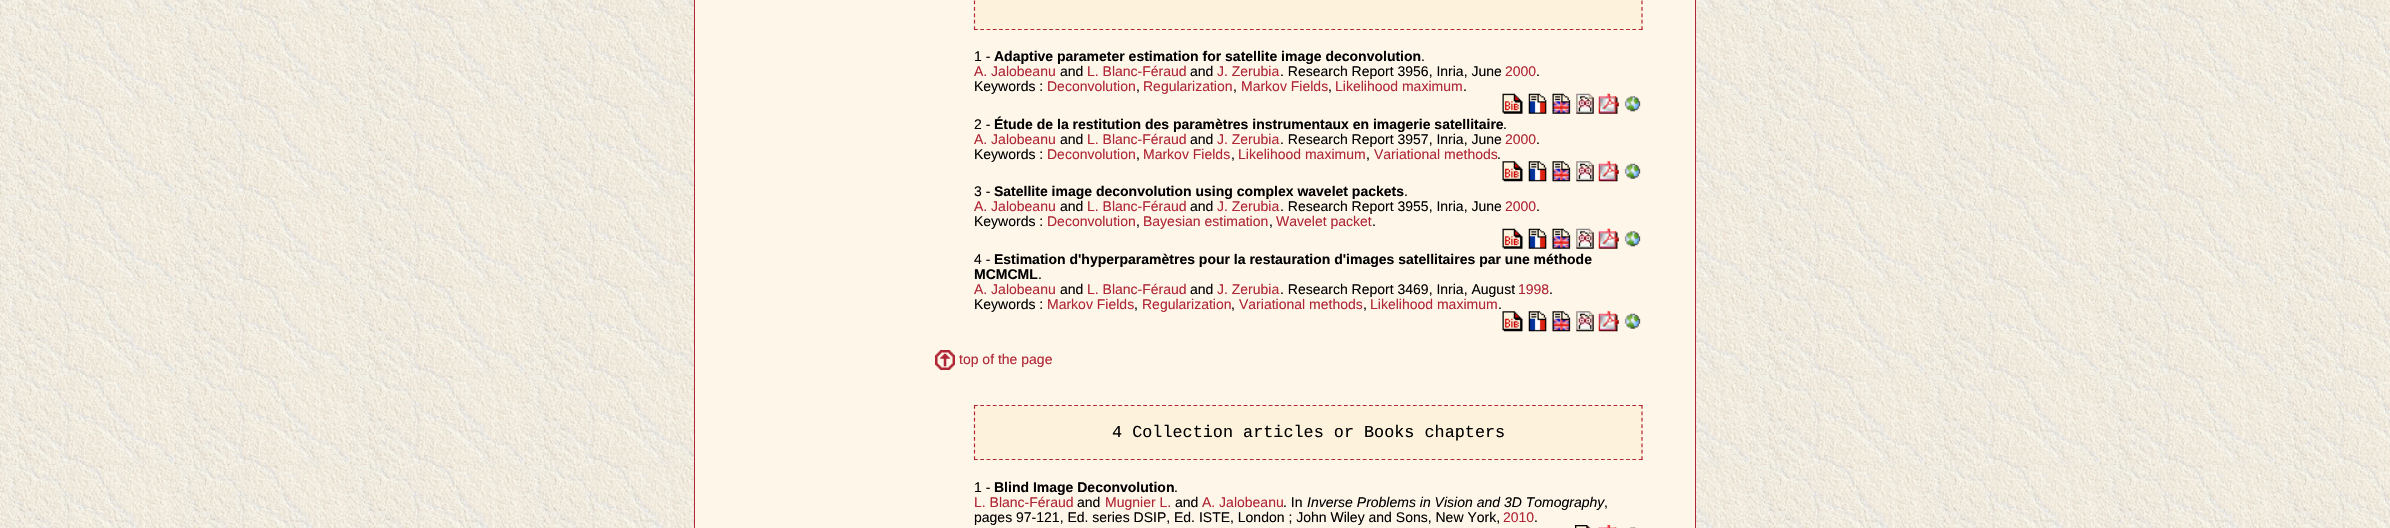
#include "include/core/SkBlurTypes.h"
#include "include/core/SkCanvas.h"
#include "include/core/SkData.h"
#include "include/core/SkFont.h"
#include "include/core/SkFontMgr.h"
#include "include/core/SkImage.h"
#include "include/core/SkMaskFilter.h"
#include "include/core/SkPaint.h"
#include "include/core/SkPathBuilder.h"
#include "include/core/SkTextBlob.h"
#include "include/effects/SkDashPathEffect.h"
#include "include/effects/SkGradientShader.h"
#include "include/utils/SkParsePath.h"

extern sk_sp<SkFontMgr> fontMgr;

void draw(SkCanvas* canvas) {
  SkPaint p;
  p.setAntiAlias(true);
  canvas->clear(SK_ColorWHITE);
  canvas->drawImageRect(SkImages::DeferredFromEncodedData(SkData::MakeFromFileName("images/1.png")), SkRect::MakeLTRB(0, 0, 2390, 528), SkSamplingOptions());
  p.setColor(SkColorSetRGB(255, 246, 234));
  canvas->drawRect(SkRect::MakeLTRB(694.5f, -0.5f, 1695.5f, 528.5f), p);
  p.setStyle(SkPaint::kStroke_Style);
  p.setStrokeWidth(1);
  p.setColor(SkColorSetRGB(175, 38, 52));
  canvas->drawRect(SkRect::MakeLTRB(694.5f, -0.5f, 1695.5f, 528.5f), p);
  p.setStyle(SkPaint::kFill_Style);
  p.setColor(SkColorSetRGB(253, 243, 221));
  canvas->drawRect(SkRect::MakeLTRB(974, 0, 1643, 30), p);
  p.setStyle(SkPaint::kStroke_Style);
  p.setStrokeWidth(1.2f);
  p.setColor(SkColorSetRGB(175, 38, 52));
  p.setPathEffect(SkDashPathEffect::Make({{3.75f, 2.65f}}, 0));
  canvas->drawPath(SkPathBuilder().moveTo(1642, -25).lineTo(1642, 30).detach(), p);
  p.setPathEffect(nullptr);
  p.setPathEffect(SkDashPathEffect::Make({{3.75f, 2.52f}}, 0));
  canvas->drawPath(SkPathBuilder().moveTo(974, 29.5f).lineTo(1642.5f, 29.5f).detach(), p);
  p.setPathEffect(nullptr);
  p.setPathEffect(SkDashPathEffect::Make({{3.75f, 2.65f}}, 0));
  canvas->drawPath(SkPathBuilder().moveTo(974.5f, -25).lineTo(974.5f, 30).detach(), p);
  p.setPathEffect(nullptr);
  canvas->drawImageRect(SkImages::DeferredFromEncodedData(SkData::MakeFromFileName("images/2.png")), SkRect::MakeLTRB(1502, 93, 1523, 114), SkSamplingOptions());
  canvas->drawImageRect(SkImages::DeferredFromEncodedData(SkData::MakeFromFileName("images/3.png")), SkRect::MakeLTRB(1528, 93, 1547, 114), SkSamplingOptions());
  canvas->drawImageRect(SkImages::DeferredFromEncodedData(SkData::MakeFromFileName("images/4.png")), SkRect::MakeLTRB(1552, 93, 1571, 114), SkSamplingOptions());
  canvas->drawImageRect(SkImages::DeferredFromEncodedData(SkData::MakeFromFileName("images/5.png")), SkRect::MakeLTRB(1576, 93, 1594, 114), SkSamplingOptions());
  canvas->drawImageRect(SkImages::DeferredFromEncodedData(SkData::MakeFromFileName("images/6.png")), SkRect::MakeLTRB(1598, 93, 1619, 114), SkSamplingOptions());
  canvas->drawImageRect(SkImages::DeferredFromEncodedData(SkData::MakeFromFileName("images/7.png")), SkRect::MakeLTRB(1624, 96, 1641, 112), SkSamplingOptions());
  canvas->drawImageRect(SkImages::DeferredFromEncodedData(SkData::MakeFromFileName("images/8.png")), SkRect::MakeLTRB(1502, 161, 1523, 182), SkSamplingOptions());
  canvas->drawImageRect(SkImages::DeferredFromEncodedData(SkData::MakeFromFileName("images/9.png")), SkRect::MakeLTRB(1528, 161, 1547, 182), SkSamplingOptions());
  canvas->drawImageRect(SkImages::DeferredFromEncodedData(SkData::MakeFromFileName("images/10.png")), SkRect::MakeLTRB(1552, 161, 1571, 182), SkSamplingOptions());
  canvas->drawImageRect(SkImages::DeferredFromEncodedData(SkData::MakeFromFileName("images/11.png")), SkRect::MakeLTRB(1576, 161, 1594, 182), SkSamplingOptions());
  canvas->drawImageRect(SkImages::DeferredFromEncodedData(SkData::MakeFromFileName("images/12.png")), SkRect::MakeLTRB(1598, 161, 1619, 182), SkSamplingOptions());
  canvas->drawImageRect(SkImages::DeferredFromEncodedData(SkData::MakeFromFileName("images/13.png")), SkRect::MakeLTRB(1624, 163, 1641, 179), SkSamplingOptions());
  canvas->drawImageRect(SkImages::DeferredFromEncodedData(SkData::MakeFromFileName("images/14.png")), SkRect::MakeLTRB(1502, 228, 1523, 249), SkSamplingOptions());
  canvas->drawImageRect(SkImages::DeferredFromEncodedData(SkData::MakeFromFileName("images/15.png")), SkRect::MakeLTRB(1528, 228, 1547, 249), SkSamplingOptions());
  canvas->drawImageRect(SkImages::DeferredFromEncodedData(SkData::MakeFromFileName("images/16.png")), SkRect::MakeLTRB(1552, 228, 1571, 249), SkSamplingOptions());
  canvas->drawImageRect(SkImages::DeferredFromEncodedData(SkData::MakeFromFileName("images/17.png")), SkRect::MakeLTRB(1576, 228, 1594, 249), SkSamplingOptions());
  canvas->drawImageRect(SkImages::DeferredFromEncodedData(SkData::MakeFromFileName("images/18.png")), SkRect::MakeLTRB(1598, 228, 1619, 249), SkSamplingOptions());
  canvas->drawImageRect(SkImages::DeferredFromEncodedData(SkData::MakeFromFileName("images/7.png")), SkRect::MakeLTRB(1624, 231, 1641, 247), SkSamplingOptions());
  canvas->drawImageRect(SkImages::DeferredFromEncodedData(SkData::MakeFromFileName("images/8.png")), SkRect::MakeLTRB(1502, 311, 1523, 332), SkSamplingOptions());
  canvas->drawImageRect(SkImages::DeferredFromEncodedData(SkData::MakeFromFileName("images/9.png")), SkRect::MakeLTRB(1528, 311, 1547, 332), SkSamplingOptions());
  canvas->drawImageRect(SkImages::DeferredFromEncodedData(SkData::MakeFromFileName("images/10.png")), SkRect::MakeLTRB(1552, 311, 1571, 332), SkSamplingOptions());
  canvas->drawImageRect(SkImages::DeferredFromEncodedData(SkData::MakeFromFileName("images/11.png")), SkRect::MakeLTRB(1576, 311, 1594, 332), SkSamplingOptions());
  canvas->drawImageRect(SkImages::DeferredFromEncodedData(SkData::MakeFromFileName("images/12.png")), SkRect::MakeLTRB(1598, 311, 1619, 332), SkSamplingOptions());
  canvas->drawImageRect(SkImages::DeferredFromEncodedData(SkData::MakeFromFileName("images/13.png")), SkRect::MakeLTRB(1624, 313, 1641, 329), SkSamplingOptions());
  canvas->drawImageRect(SkImages::DeferredFromEncodedData(SkData::MakeFromFileName("images/19.png")), SkRect::MakeLTRB(935, 350, 955, 370), SkSamplingOptions());
  p.setStyle(SkPaint::kFill_Style);
  p.setColor(SkColorSetRGB(253, 243, 221));
  canvas->drawRect(SkRect::MakeLTRB(974, 405, 1643, 460), p);
  p.setStyle(SkPaint::kStroke_Style);
  p.setColor(SkColorSetRGB(175, 38, 52));
  p.setPathEffect(SkDashPathEffect::Make({{3.75f, 2.52f}}, 0));
  canvas->drawPath(SkPathBuilder().moveTo(974, 405.5f).lineTo(1642.5f, 405.5f).detach(), p);
  p.setPathEffect(nullptr);
  p.setPathEffect(SkDashPathEffect::Make({{3.75f, 2.65f}}, 0));
  canvas->drawPath(SkPathBuilder().moveTo(1642, 405).lineTo(1642, 460).detach(), p);
  p.setPathEffect(nullptr);
  p.setPathEffect(SkDashPathEffect::Make({{3.75f, 2.52f}}, 0));
  canvas->drawPath(SkPathBuilder().moveTo(974, 459.5f).lineTo(1642.5f, 459.5f).detach(), p);
  p.setPathEffect(nullptr);
  p.setPathEffect(SkDashPathEffect::Make({{3.75f, 2.65f}}, 0));
  canvas->drawPath(SkPathBuilder().moveTo(974.5f, 405).lineTo(974.5f, 460).detach(), p);
  p.setPathEffect(nullptr);
  canvas->drawImageRect(SkImages::DeferredFromEncodedData(SkData::MakeFromFileName("images/20.png")), SkRect::MakeLTRB(1575, 525, 1591, 528), SkSamplingOptions());
  canvas->drawImageRect(SkImages::DeferredFromEncodedData(SkData::MakeFromFileName("images/21.png")), SkRect::MakeLTRB(1598, 525, 1617, 528), SkSamplingOptions());
  canvas->drawImageRect(SkImages::DeferredFromEncodedData(SkData::MakeFromFileName("images/22.png")), SkRect::MakeLTRB(1630, 527, 1636, 528), SkSamplingOptions());
  SkFont font1(fontMgr->matchFamilyStyle("Liberation Sans", SkFontStyle::Normal()), 14);
  font1.setSubpixel(true);
  p.setStyle(SkPaint::kFill_Style);
  p.setColor(SK_ColorBLACK);
  canvas->drawString("1 -", 974, 61, font1, p);
  SkFont font2(fontMgr->matchFamilyStyle("Liberation Sans", SkFontStyle::Bold()), 14);
  font2.setSubpixel(true);
  canvas->drawString("Adaptive parameter estimation for satellite image deconvolution", 994, 61, font2, p);
  canvas->drawString(".", 1421, 61, font1, p);
  p.setColor(SkColorSetRGB(175, 38, 52));
  canvas->drawString("A. Jalobeanu", 974, 76, font1, p);
  p.setColor(SK_ColorBLACK);
  canvas->drawString("and", 1060, 76, font1, p);
  p.setColor(SkColorSetRGB(175, 38, 52));
  canvas->drawString("L. Blanc-Féraud", 1087, 76, font1, p);
  p.setColor(SK_ColorBLACK);
  canvas->drawString("and", 1190, 76, font1, p);
  p.setColor(SkColorSetRGB(175, 38, 52));
  canvas->drawString("J. Zerubia", 1217, 76, font1, p);
  p.setColor(SK_ColorBLACK);
  canvas->drawString(". Research Report 3956, Inria, June", 1280, 76, font1, p);
  p.setColor(SkColorSetRGB(175, 38, 52));
  canvas->drawString("2000", 1505, 76, font1, p);
  p.setColor(SK_ColorBLACK);
  canvas->drawString(".", 1536, 76, font1, p);
  canvas->drawString("Keywords :", 974, 91, font1, p);
  p.setColor(SkColorSetRGB(175, 38, 52));
  canvas->drawString("Deconvolution", 1047, 91, font1, p);
  p.setColor(SK_ColorBLACK);
  canvas->drawString(",", 1136, 91, font1, p);
  p.setColor(SkColorSetRGB(175, 38, 52));
  canvas->drawString("Regularization", 1143, 91, font1, p);
  p.setColor(SK_ColorBLACK);
  canvas->drawString(",", 1233, 91, font1, p);
  p.setColor(SkColorSetRGB(175, 38, 52));
  canvas->drawString("Markov Fields", 1241, 91, font1, p);
  p.setColor(SK_ColorBLACK);
  canvas->drawString(",", 1328, 91, font1, p);
  p.setColor(SkColorSetRGB(175, 38, 52));
  canvas->drawString("Likelihood maximum", 1335, 91, font1, p);
  p.setColor(SK_ColorBLACK);
  canvas->drawString(".", 1463, 91, font1, p);
  canvas->drawString("2 -", 974, 129, font1, p);
  canvas->drawString("Étude de la restitution des paramètres instrumentaux en imagerie satellitaire", 994, 129, font2, p);
  canvas->drawString(".", 1503, 129, font1, p);
  p.setColor(SkColorSetRGB(175, 38, 52));
  canvas->drawString("A. Jalobeanu", 974, 144, font1, p);
  p.setColor(SK_ColorBLACK);
  canvas->drawString("and", 1060, 144, font1, p);
  p.setColor(SkColorSetRGB(175, 38, 52));
  canvas->drawString("L. Blanc-Féraud", 1087, 144, font1, p);
  p.setColor(SK_ColorBLACK);
  canvas->drawString("and", 1190, 144, font1, p);
  p.setColor(SkColorSetRGB(175, 38, 52));
  canvas->drawString("J. Zerubia", 1217, 144, font1, p);
  p.setColor(SK_ColorBLACK);
  canvas->drawString(". Research Report 3957, Inria, June", 1280, 144, font1, p);
  p.setColor(SkColorSetRGB(175, 38, 52));
  canvas->drawString("2000", 1505, 144, font1, p);
  p.setColor(SK_ColorBLACK);
  canvas->drawString(".", 1536, 144, font1, p);
  canvas->drawString("Keywords :", 974, 159, font1, p);
  p.setColor(SkColorSetRGB(175, 38, 52));
  canvas->drawString("Deconvolution", 1047, 159, font1, p);
  p.setColor(SK_ColorBLACK);
  canvas->drawString(",", 1136, 159, font1, p);
  p.setColor(SkColorSetRGB(175, 38, 52));
  canvas->drawString("Markov Fields", 1143, 159, font1, p);
  p.setColor(SK_ColorBLACK);
  canvas->drawString(",", 1231, 159, font1, p);
  p.setColor(SkColorSetRGB(175, 38, 52));
  canvas->drawString("Likelihood maximum", 1238, 159, font1, p);
  p.setColor(SK_ColorBLACK);
  canvas->drawString(",", 1366, 159, font1, p);
  p.setColor(SkColorSetRGB(175, 38, 52));
  canvas->drawString("Variational methods", 1374, 159, font1, p);
  p.setColor(SK_ColorBLACK);
  canvas->drawString(".", 1497, 159, font1, p);
  canvas->drawString("3 -", 974, 196, font1, p);
  canvas->drawString("Satellite image deconvolution using complex wavelet packets", 994, 196, font2, p);
  canvas->drawString(".", 1404, 196, font1, p);
  p.setColor(SkColorSetRGB(175, 38, 52));
  canvas->drawString("A. Jalobeanu", 974, 211, font1, p);
  p.setColor(SK_ColorBLACK);
  canvas->drawString("and", 1060, 211, font1, p);
  p.setColor(SkColorSetRGB(175, 38, 52));
  canvas->drawString("L. Blanc-Féraud", 1087, 211, font1, p);
  p.setColor(SK_ColorBLACK);
  canvas->drawString("and", 1190, 211, font1, p);
  p.setColor(SkColorSetRGB(175, 38, 52));
  canvas->drawString("J. Zerubia", 1217, 211, font1, p);
  p.setColor(SK_ColorBLACK);
  canvas->drawString(". Research Report 3955, Inria, June", 1280, 211, font1, p);
  p.setColor(SkColorSetRGB(175, 38, 52));
  canvas->drawString("2000", 1505, 211, font1, p);
  p.setColor(SK_ColorBLACK);
  canvas->drawString(".", 1536, 211, font1, p);
  canvas->drawString("Keywords :", 974, 226, font1, p);
  p.setColor(SkColorSetRGB(175, 38, 52));
  canvas->drawString("Deconvolution", 1047, 226, font1, p);
  p.setColor(SK_ColorBLACK);
  canvas->drawString(",", 1136, 226, font1, p);
  p.setColor(SkColorSetRGB(175, 38, 52));
  canvas->drawString("Bayesian estimation", 1143, 226, font1, p);
  p.setColor(SK_ColorBLACK);
  canvas->drawString(",", 1269, 226, font1, p);
  p.setColor(SkColorSetRGB(175, 38, 52));
  canvas->drawString("Wavelet packet", 1276, 226, font1, p);
  p.setColor(SK_ColorBLACK);
  canvas->drawString(".", 1372, 226, font1, p);
  canvas->drawString("4 -", 974, 264, font1, p);
  canvas->drawString("Estimation d'hyperparamètres pour la restauration d'images satellitaires par une méthode", 994, 264, font2, p);
  canvas->drawString("MCMCML", 974, 279, font2, p);
  canvas->drawString(".", 1038, 279, font1, p);
  p.setColor(SkColorSetRGB(175, 38, 52));
  canvas->drawString("A. Jalobeanu", 974, 294, font1, p);
  p.setColor(SK_ColorBLACK);
  canvas->drawString("and", 1060, 294, font1, p);
  p.setColor(SkColorSetRGB(175, 38, 52));
  canvas->drawString("L. Blanc-Féraud", 1087, 294, font1, p);
  p.setColor(SK_ColorBLACK);
  canvas->drawString("and", 1190, 294, font1, p);
  p.setColor(SkColorSetRGB(175, 38, 52));
  canvas->drawString("J. Zerubia", 1217, 294, font1, p);
  p.setColor(SK_ColorBLACK);
  canvas->drawString(". Research Report 3469, Inria, August", 1280, 294, font1, p);
  p.setColor(SkColorSetRGB(175, 38, 52));
  canvas->drawString("1998", 1518, 294, font1, p);
  p.setColor(SK_ColorBLACK);
  canvas->drawString(".", 1549, 294, font1, p);
  canvas->drawString("Keywords :", 974, 309, font1, p);
  p.setColor(SkColorSetRGB(175, 38, 52));
  canvas->drawString("Markov Fields", 1047, 309, font1, p);
  p.setColor(SK_ColorBLACK);
  canvas->drawString(",", 1134, 309, font1, p);
  p.setColor(SkColorSetRGB(175, 38, 52));
  canvas->drawString("Regularization", 1142, 309, font1, p);
  p.setColor(SK_ColorBLACK);
  canvas->drawString(",", 1231, 309, font1, p);
  p.setColor(SkColorSetRGB(175, 38, 52));
  canvas->drawString("Variational methods", 1239, 309, font1, p);
  p.setColor(SK_ColorBLACK);
  canvas->drawString(",", 1363, 309, font1, p);
  p.setColor(SkColorSetRGB(175, 38, 52));
  canvas->drawString("Likelihood maximum", 1370, 309, font1, p);
  p.setColor(SK_ColorBLACK);
  canvas->drawString(".", 1498, 309, font1, p);
  p.setColor(SkColorSetRGB(175, 38, 52));
  canvas->drawString("top of the page", 959, 364, font1, p);
  SkFont font3(fontMgr->matchFamilyStyle("Liberation Mono", SkFontStyle::Normal()), 16.8f);
  font3.setSubpixel(true);
  p.setColor(SK_ColorBLACK);
  canvas->drawString("4 Collection articles or Books chapters", 1112, 437, font3, p);
  canvas->drawString("1 -", 974, 492, font1, p);
  canvas->drawString("Blind Image Deconvolution", 994, 492, font2, p);
  canvas->drawString(".", 1174, 492, font1, p);
  p.setColor(SkColorSetRGB(175, 38, 52));
  canvas->drawString("L. Blanc-Féraud", 974, 507, font1, p);
  p.setColor(SK_ColorBLACK);
  canvas->drawString("and", 1077, 507, font1, p);
  p.setColor(SkColorSetRGB(175, 38, 52));
  canvas->drawString("Mugnier L.", 1105, 507, font1, p);
  p.setColor(SK_ColorBLACK);
  canvas->drawString("and", 1175, 507, font1, p);
  p.setColor(SkColorSetRGB(175, 38, 52));
  canvas->drawString("A. Jalobeanu", 1202, 507, font1, p);
  p.setColor(SK_ColorBLACK);
  canvas->drawString(". In", 1283, 507, font1, p);
  SkFont font4(fontMgr->matchFamilyStyle("Liberation Sans", SkFontStyle::Italic()), 14);
  font4.setSubpixel(true);
  canvas->drawString("Inverse Problems in Vision and 3D Tomography", 1307, 507, font4, p);
  canvas->drawString(",", 1604, 507, font1, p);
  canvas->drawString("pages 97-121, Ed. series DSIP, Ed. ISTE, London ; John Wiley and Sons, New York,", 974, 522, font1, p);
  p.setColor(SkColorSetRGB(175, 38, 52));
  canvas->drawString("2010", 1503, 522, font1, p);
  p.setColor(SK_ColorBLACK);
  canvas->drawString(".", 1534, 522, font1, p);
}
